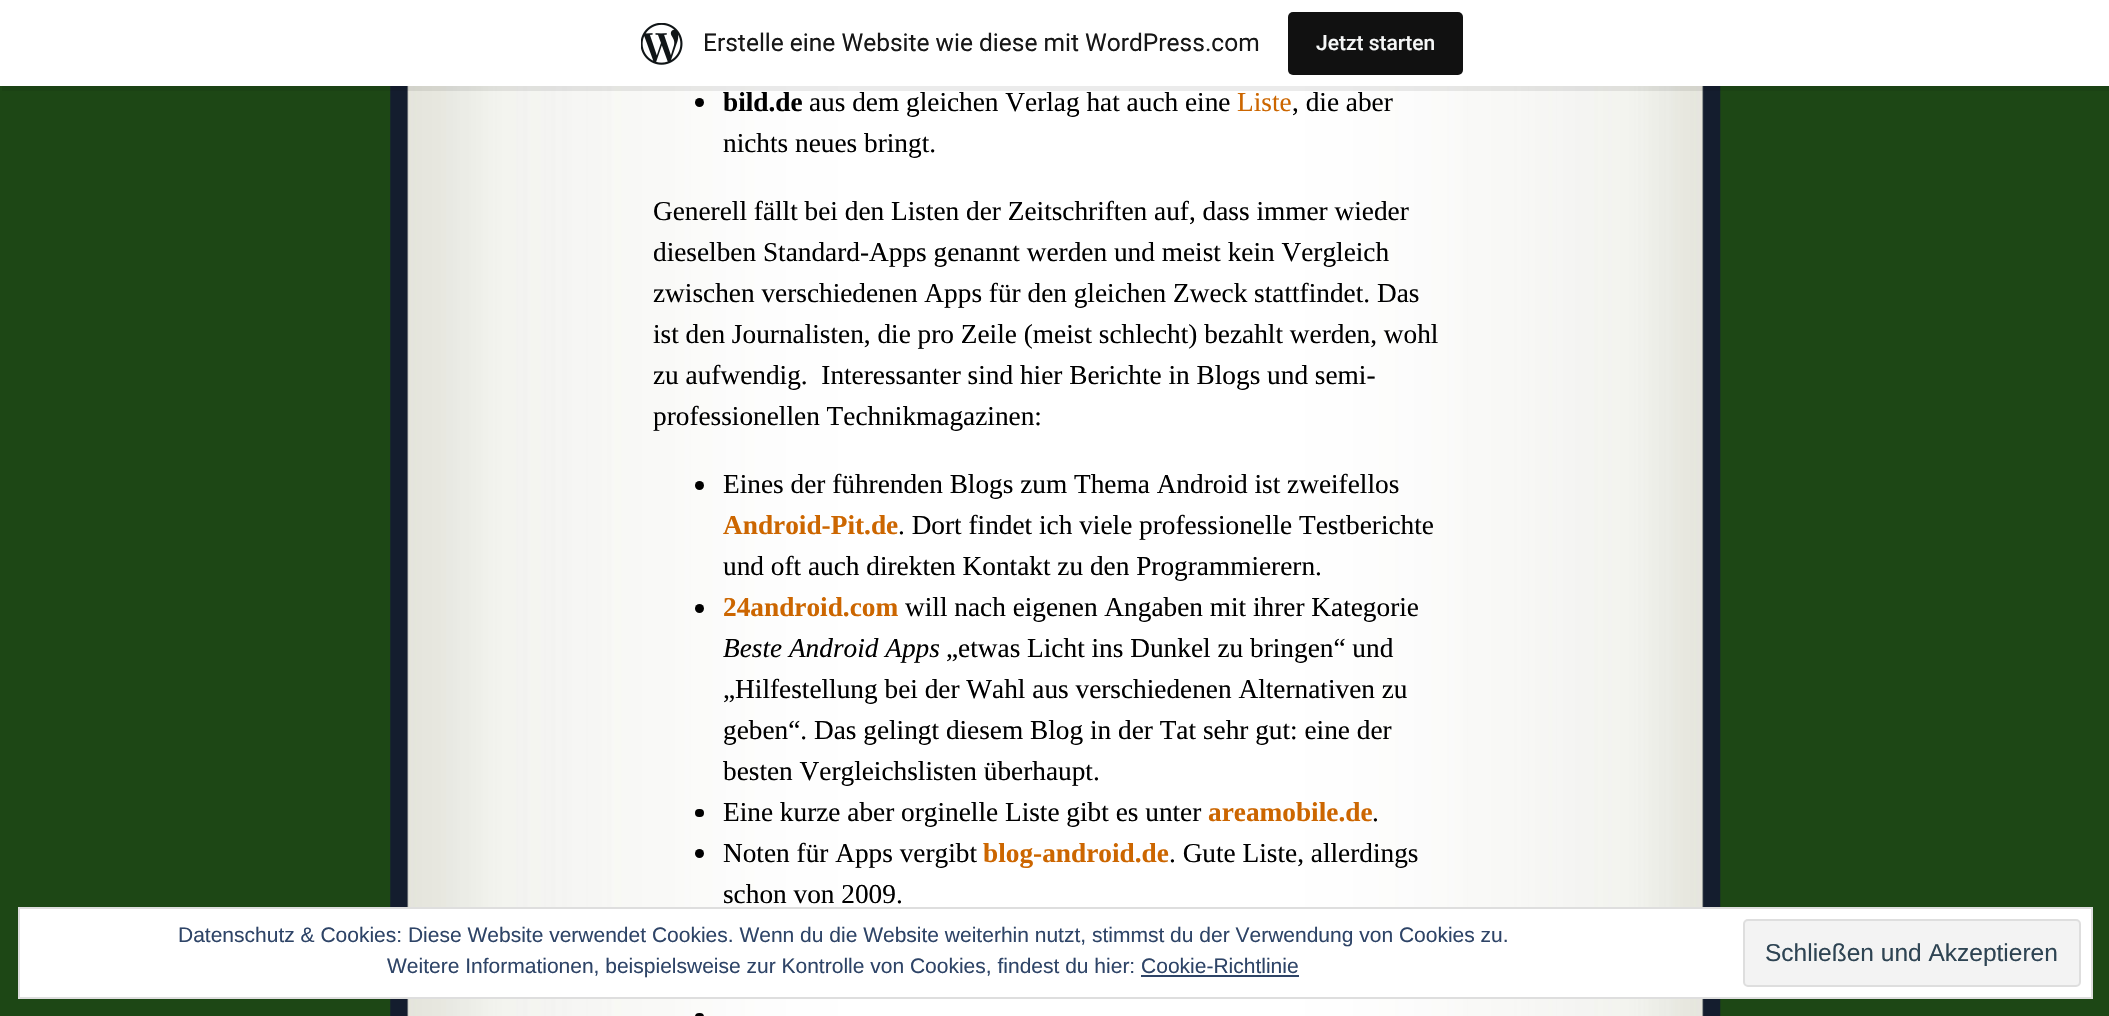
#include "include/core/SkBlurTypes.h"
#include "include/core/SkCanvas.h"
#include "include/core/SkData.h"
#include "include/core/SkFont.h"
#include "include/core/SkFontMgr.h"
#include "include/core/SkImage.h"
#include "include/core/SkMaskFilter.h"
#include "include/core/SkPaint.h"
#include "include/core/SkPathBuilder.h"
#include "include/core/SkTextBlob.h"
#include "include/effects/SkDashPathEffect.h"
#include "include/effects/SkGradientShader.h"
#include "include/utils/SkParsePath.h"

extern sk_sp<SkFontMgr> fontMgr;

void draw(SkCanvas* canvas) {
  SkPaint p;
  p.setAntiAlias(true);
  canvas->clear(SkColorSetRGB(29, 71, 21));
  canvas->drawImageRect(SkImages::DeferredFromEncodedData(SkData::MakeFromFileName("images/2.png")), SkRect::MakeLTRB(390, 86, 1721, 1016), SkSamplingOptions());
  p.setColor(SkColorSetARGB(20, 0, 0, 0));
  canvas->drawPath(SkPathBuilder().moveTo(2, 86).lineTo(2, 91).lineTo(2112, 91).lineTo(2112, 5).lineTo(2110, 5).lineTo(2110, 86).close().detach(), p);
  p.setColor(SK_ColorWHITE);
  canvas->drawRect(SkRect::MakeLTRB(0, 0, 2109, 86), p);
  canvas->drawImageRect(SkImages::DeferredFromEncodedData(SkData::MakeFromFileName("images/1.png")), SkRect::MakeLTRB(641, 23, 683, 65), SkSamplingOptions());
  p.setColor(SkColorSetRGB(17, 17, 17));
  canvas->drawRoundRect(SkRect::MakeLTRB(1288, 12, 1463, 75), 5, 5, p);
  p.setColor(SK_ColorBLACK);
  canvas->drawCircle(699.5f, 102.5f, 4.5f, p);
  canvas->drawCircle(699.5f, 485.5f, 4.5f, p);
  canvas->drawCircle(699.5f, 608.5f, 4.5f, p);
  canvas->drawRoundRect(SkRect::MakeLTRB(695, 809, 704, 817), 4, 4, p);
  canvas->drawCircle(699.5f, 853.5f, 4.5f, p);
  canvas->drawRoundRect(SkRect::MakeLTRB(695, 1013, 704, 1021), 4.5f, 4.5f, p);
  p.setColor(SK_ColorWHITE);
  canvas->drawRect(SkRect::MakeLTRB(19, 908, 2092, 998), p);
  p.setStyle(SkPaint::kStroke_Style);
  p.setStrokeWidth(2);
  p.setColor(SkColorSetRGB(222, 222, 222));
  canvas->drawRect(SkRect::MakeLTRB(19, 908, 2092, 998), p);
  p.setStyle(SkPaint::kFill_Style);
  p.setColor(SkColorSetRGB(243, 243, 243));
  canvas->drawRoundRect(SkRect::MakeLTRB(1744, 920, 2080, 986), 4, 4, p);
  p.setStyle(SkPaint::kStroke_Style);
  p.setColor(SkColorSetRGB(222, 222, 222));
  canvas->drawRoundRect(SkRect::MakeLTRB(1744, 920, 2080, 986), 4, 4, p);
  p.setStyle(SkPaint::kFill_Style);
  p.setColor(SkColorSetRGB(46, 68, 103));
  canvas->drawRect(SkRect::MakeLTRB(1141, 975, 1299, 977), p);
  SkFont font1(fontMgr->matchFamilyStyle("Roboto", SkFontStyle::Normal()), 24.5f);
  font1.setSubpixel(true);
  p.setColor(SkColorSetRGB(23, 23, 23));
  canvas->drawString("Erstelle eine Website wie diese mit WordPress.com", 703, 51, font1, p);
  SkFont font2(fontMgr->matchFamilyStyle("Roboto", SkFontStyle(500, SkFontStyle::kNormal_Width, SkFontStyle::kUpright_Slant)), 21);
  font2.setSubpixel(true);
  p.setColor(SkColorSetRGB(246, 247, 247));
  canvas->drawString("Jetzt starten", 1316, 50, font2, p);
  SkFont font3(fontMgr->matchFamilyStyle("Liberation Serif", SkFontStyle::Bold()), 27.3f);
  font3.setSubpixel(true);
  p.setColor(SK_ColorBLACK);
  canvas->drawString("bild.de", 723, 111, font3, p);
  SkFont font4(fontMgr->matchFamilyStyle("Liberation Serif", SkFontStyle::Normal()), 27.3f);
  font4.setSubpixel(true);
  canvas->drawString("aus dem gleichen Verlag hat auch eine", 809, 111, font4, p);
  p.setColor(SkColorSetRGB(204, 102, 0));
  canvas->drawString("Liste", 1237, 111, font4, p);
  p.setColor(SK_ColorBLACK);
  canvas->drawString(", die aber", 1292, 111, font4, p);
  canvas->drawString("nichts neues bringt.", 723, 152, font4, p);
  canvas->drawString("Generell fällt bei den Listen der Zeitschriften auf, dass immer wieder", 653, 220, font4, p);
  canvas->drawString("dieselben Standard-Apps genannt werden und meist kein Vergleich", 653, 261, font4, p);
  canvas->drawString("zwischen verschiedenen Apps für den gleichen Zweck stattfindet. Das", 653, 302, font4, p);
  canvas->drawString("ist den Journalisten, die pro Zeile (meist schlecht) bezahlt werden, wohl", 653, 343, font4, p);
  canvas->drawString("zu aufwendig.  Interessanter sind hier Berichte in Blogs und semi-", 653, 384, font4, p);
  canvas->drawString("professionellen Technikmagazinen:", 653, 425, font4, p);
  canvas->drawString("Eines der führenden Blogs zum Thema Android ist zweifellos", 723, 493, font4, p);
  p.setColor(SkColorSetRGB(204, 102, 0));
  canvas->drawString("Android-Pit.de", 723, 534, font3, p);
  p.setColor(SK_ColorBLACK);
  canvas->drawString(". Dort findet ich viele professionelle Testberichte", 898, 534, font4, p);
  canvas->drawString("und oft auch direkten Kontakt zu den Programmierern.", 723, 575, font4, p);
  p.setColor(SkColorSetRGB(204, 102, 0));
  canvas->drawString("24android.com", 723, 616, font3, p);
  p.setColor(SK_ColorBLACK);
  canvas->drawString("will nach eigenen Angaben mit ihrer Kategorie", 905, 616, font4, p);
  SkFont font5(fontMgr->matchFamilyStyle("Liberation Serif", SkFontStyle::Italic()), 27.3f);
  font5.setSubpixel(true);
  canvas->drawString("Beste Android Apps", 723, 657, font5, p);
  canvas->drawString("„etwas Licht ins Dunkel zu bringen“ und", 946, 657, font4, p);
  canvas->drawString("„Hilfestellung bei der Wahl aus verschiedenen Alternativen zu", 723, 698, font4, p);
  canvas->drawString("geben“. Das gelingt diesem Blog in der Tat sehr gut: eine der", 723, 739, font4, p);
  canvas->drawString("besten Vergleichslisten überhaupt.", 723, 780, font4, p);
  canvas->drawString("Eine kurze aber orginelle Liste gibt es unter", 723, 821, font4, p);
  p.setColor(SkColorSetRGB(204, 102, 0));
  canvas->drawString("areamobile.de", 1208, 821, font3, p);
  p.setColor(SK_ColorBLACK);
  canvas->drawString(".", 1372, 821, font4, p);
  canvas->drawString("Noten für Apps vergibt", 723, 862, font4, p);
  p.setColor(SkColorSetRGB(204, 102, 0));
  canvas->drawString("blog-android.de", 983, 862, font3, p);
  p.setColor(SK_ColorBLACK);
  canvas->drawString(". Gute Liste, allerdings", 1169, 862, font4, p);
  canvas->drawString("schon von 2009.", 723, 903, font4, p);
  SkFont font6(fontMgr->matchFamilyStyle("Liberation Sans", SkFontStyle::Normal()), 21);
  font6.setSubpixel(true);
  p.setColor(SkColorSetRGB(46, 68, 103));
  canvas->drawString("Datenschutz & Cookies: Diese Website verwendet Cookies. Wenn du die Website weiterhin nutzt, stimmst du der Verwendung von Cookies zu.", 178, 942, font6, p);
  canvas->drawString("Weitere Informationen, beispielsweise zur Kontrolle von Cookies, findest du hier: Cookie-Richtlinie", 387, 973, font6, p);
  SkFont font7(fontMgr->matchFamilyStyle("Liberation Sans", SkFontStyle::Normal()), 24.5f);
  font7.setSubpixel(true);
  p.setColor(SkColorSetRGB(46, 68, 83));
  canvas->drawString("Schließen und Akzeptieren", 1765, 961, font7, p);
}
